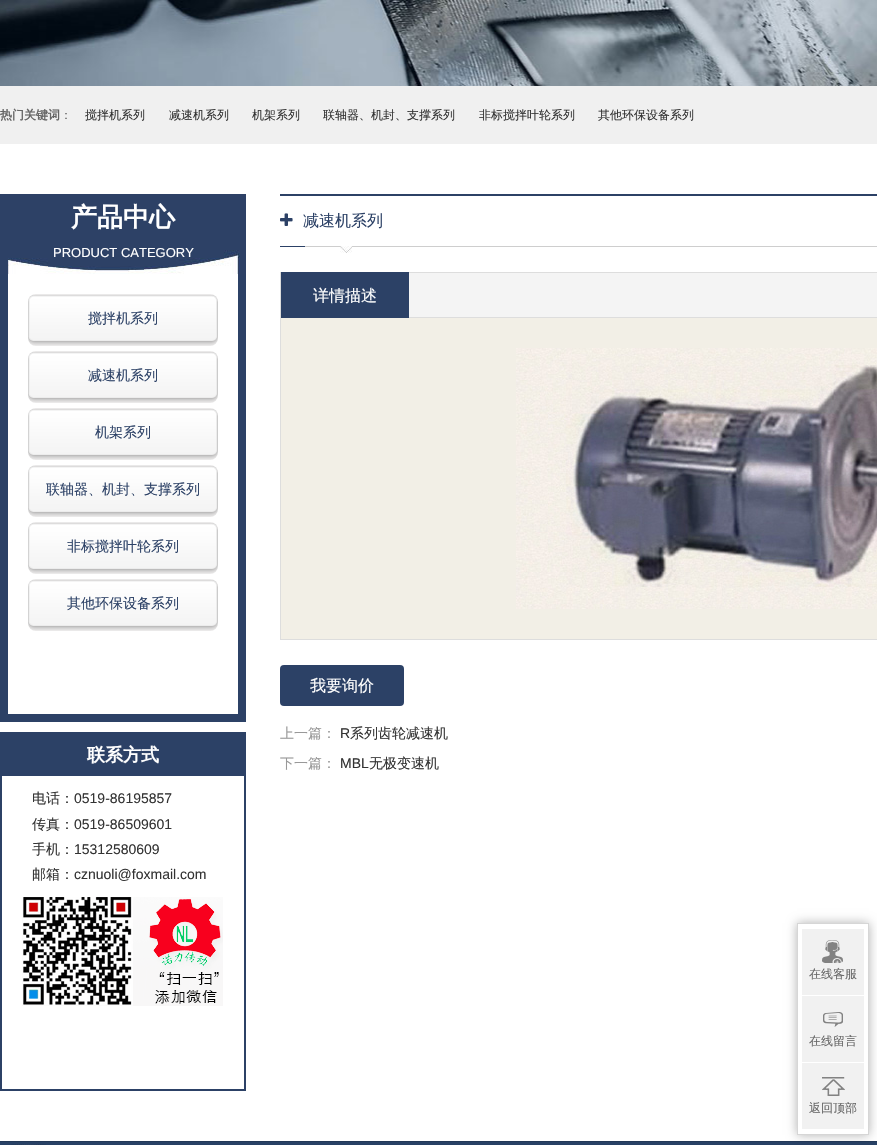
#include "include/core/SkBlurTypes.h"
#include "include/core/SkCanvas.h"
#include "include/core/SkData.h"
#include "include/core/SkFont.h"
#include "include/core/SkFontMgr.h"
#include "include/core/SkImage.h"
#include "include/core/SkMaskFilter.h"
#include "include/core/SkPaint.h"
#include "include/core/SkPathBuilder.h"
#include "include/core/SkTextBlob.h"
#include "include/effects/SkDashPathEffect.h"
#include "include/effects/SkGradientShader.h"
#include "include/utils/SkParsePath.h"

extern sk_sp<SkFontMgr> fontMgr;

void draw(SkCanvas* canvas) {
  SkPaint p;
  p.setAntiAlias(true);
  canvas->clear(SK_ColorWHITE);
  canvas->drawImageRect(SkImages::DeferredFromEncodedData(SkData::MakeFromFileName("images/1.png")), SkRect::MakeLTRB(0, 0, 877, 86), SkSamplingOptions());
  p.setColor(SkColorSetRGB(240, 240, 240));
  canvas->drawRect(SkRect::MakeLTRB(0, 86, 877, 144), p);
  canvas->drawImageRect(SkImages::DeferredFromEncodedData(SkData::MakeFromFileName("images/2.png")), SkRect::MakeLTRB(0, 194, 246, 274), SkSamplingOptions());
  p.setColor(SkColorSetRGB(44, 65, 102));
  canvas->drawRect(SkRect::MakeLTRB(238, 274, 246, 722), p);
  canvas->drawRect(SkRect::MakeLTRB(0, 714, 246, 722), p);
  canvas->drawRect(SkRect::MakeLTRB(0, 274, 8, 722), p);
  p.setColor(SkColorSetRGB(234, 233, 233));
  canvas->drawRoundRect(SkRect::MakeLTRB(28, 294, 218, 346), 8, 8, p);
  canvas->drawImageRect(SkImages::DeferredFromEncodedData(SkData::MakeFromFileName("images/3.png")), SkRect::MakeLTRB(28, 295, 218, 345), SkSamplingOptions());
  canvas->drawRoundRect(SkRect::MakeLTRB(28, 351, 218, 403), 8, 8, p);
  canvas->drawImageRect(SkImages::DeferredFromEncodedData(SkData::MakeFromFileName("images/3.png")), SkRect::MakeLTRB(28, 352, 218, 402), SkSamplingOptions());
  canvas->drawRoundRect(SkRect::MakeLTRB(28, 408, 218, 460), 8, 8, p);
  canvas->drawImageRect(SkImages::DeferredFromEncodedData(SkData::MakeFromFileName("images/4.png")), SkRect::MakeLTRB(28, 409, 218, 459), SkSamplingOptions());
  canvas->drawRoundRect(SkRect::MakeLTRB(28, 465, 218, 517), 8, 8, p);
  canvas->drawImageRect(SkImages::DeferredFromEncodedData(SkData::MakeFromFileName("images/3.png")), SkRect::MakeLTRB(28, 466, 218, 516), SkSamplingOptions());
  canvas->drawRoundRect(SkRect::MakeLTRB(28, 522, 218, 574), 8, 8, p);
  canvas->drawImageRect(SkImages::DeferredFromEncodedData(SkData::MakeFromFileName("images/3.png")), SkRect::MakeLTRB(28, 523, 218, 573), SkSamplingOptions());
  canvas->drawRoundRect(SkRect::MakeLTRB(28, 579, 218, 631), 8, 8, p);
  canvas->drawImageRect(SkImages::DeferredFromEncodedData(SkData::MakeFromFileName("images/3.png")), SkRect::MakeLTRB(28, 580, 218, 630), SkSamplingOptions());
  p.setStyle(SkPaint::kStroke_Style);
  p.setStrokeWidth(2);
  p.setColor(SkColorSetRGB(44, 65, 102));
  canvas->drawRect(SkRect::MakeLTRB(1, 733, 245, 1090), p);
  p.setStyle(SkPaint::kFill_Style);
  canvas->drawRect(SkRect::MakeLTRB(2, 734, 244, 776), p);
  canvas->drawImageRect(SkImages::DeferredFromEncodedData(SkData::MakeFromFileName("images/5.png")), SkRect::MakeLTRB(22, 897, 223, 1006), SkSamplingOptions());
  canvas->drawRect(SkRect::MakeLTRB(280, 194, 877, 196), p);
  canvas->drawImageRect(SkImages::DeferredFromEncodedData(SkData::MakeFromFileName("images/6.png")), SkRect::MakeLTRB(280, 213, 293, 226), SkSamplingOptions());
  p.setColor(SkColorSetRGB(206, 206, 206));
  canvas->drawRect(SkRect::MakeLTRB(305, 246, 877, 247), p);
  p.setColor(SkColorSetRGB(44, 65, 102));
  canvas->drawRect(SkRect::MakeLTRB(280, 246, 305, 247), p);
  canvas->drawImageRect(SkImages::DeferredFromEncodedData(SkData::MakeFromFileName("images/7.png")), SkRect::MakeLTRB(340, 246, 352, 253), SkSamplingOptions());
  p.setStyle(SkPaint::kStroke_Style);
  p.setStrokeWidth(1);
  p.setColor(SkColorSetRGB(221, 221, 221));
  canvas->drawRect(SkRect::MakeLTRB(280.5f, 272.5f, 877.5f, 639.5f), p);
  p.setStyle(SkPaint::kFill_Style);
  p.setColor(SkColorSetRGB(244, 244, 244));
  canvas->drawRect(SkRect::MakeLTRB(409, 273, 877, 317), p);
  p.setColor(SkColorSetRGB(221, 221, 221));
  canvas->drawRect(SkRect::MakeLTRB(409, 317, 877, 318), p);
  p.setColor(SkColorSetRGB(44, 65, 102));
  canvas->drawRect(SkRect::MakeLTRB(281, 272, 409, 318), p);
  p.setColor(SkColorSetRGB(242, 239, 230));
  canvas->drawRect(SkRect::MakeLTRB(281, 318, 877, 639), p);
  canvas->drawImageRect(SkImages::DeferredFromEncodedData(SkData::MakeFromFileName("images/8.png")), SkRect::MakeLTRB(516, 348, 877, 609), SkSamplingOptions());
  p.setColor(SkColorSetRGB(44, 65, 102));
  canvas->drawRoundRect(SkRect::MakeLTRB(280, 665, 404, 706), 4, 4, p);
  p.setColor(SkColorSetRGB(40, 65, 101));
  canvas->drawRect(SkRect::MakeLTRB(0, 1142, 877, 1145), p);
  p.setColor(SkColorSetRGB(34, 56, 87));
  canvas->drawRect(SkRect::MakeLTRB(0, 1141, 877, 1142), p);
  canvas->save();
  canvas->clipPath(SkPathBuilder(SkPathFillType::kEvenOdd).moveTo(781, 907).lineTo(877, 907).lineTo(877, 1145).lineTo(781, 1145).close().moveTo(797, 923).lineTo(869, 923).lineTo(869, 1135).lineTo(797, 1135).close().detach(), true);
  p.setColor(SkColorSetARGB(77, 0, 0, 0));
  p.setMaskFilter(SkMaskFilter::MakeBlur(kNormal_SkBlurStyle, 5));
  canvas->drawRect(SkRect::MakeLTRB(797, 923, 869, 1135), p);
  p.setMaskFilter(nullptr);
  canvas->restore();
  p.setStyle(SkPaint::kStroke_Style);
  p.setColor(SkColorSetRGB(214, 214, 214));
  canvas->drawRect(SkRect::MakeLTRB(797.5f, 923.5f, 868.5f, 1134.5f), p);
  p.setStyle(SkPaint::kFill_Style);
  p.setColor(SkColorSetRGB(241, 241, 241));
  canvas->drawRect(SkRect::MakeLTRB(802, 929, 864, 995), p);
  canvas->drawImageRect(SkImages::DeferredFromEncodedData(SkData::MakeFromFileName("images/9.png")), SkRect::MakeLTRB(822, 940, 843, 963), SkSamplingOptions());
  canvas->drawRect(SkRect::MakeLTRB(802, 996, 864, 1062), p);
  canvas->drawImageRect(SkImages::DeferredFromEncodedData(SkData::MakeFromFileName("images/10.png")), SkRect::MakeLTRB(823, 1012, 843, 1027), SkSamplingOptions());
  canvas->drawRect(SkRect::MakeLTRB(802, 1063, 864, 1129), p);
  canvas->drawImageRect(SkImages::DeferredFromEncodedData(SkData::MakeFromFileName("images/11.png")), SkRect::MakeLTRB(822, 1077, 845, 1096), SkSamplingOptions());
  canvas->drawImageRect(SkImages::DeferredFromEncodedData(SkData::MakeFromFileName("images/12.png")), SkRect::MakeLTRB(11, 1144, 46, 1145), SkSamplingOptions());
  SkFont font1(fontMgr->matchFamilyStyle("WenQuanYi Zen Hei", SkFontStyle::Bold()), 12);
  font1.setSubpixel(true);
  p.setColor(SkColorSetRGB(102, 102, 102));
  canvas->drawString("热门关键词", 0, 119, font1, p);
  SkFont font2(fontMgr->matchFamilyStyle("WenQuanYi Zen Hei", SkFontStyle(500, SkFontStyle::kNormal_Width, SkFontStyle::kUpright_Slant)), 12);
  font2.setSubpixel(true);
  canvas->drawString("：", 60, 119, font2, p);
  p.setColor(SkColorSetRGB(51, 51, 51));
  canvas->drawString("搅拌机系列", 85, 119, font2, p);
  canvas->drawString("减速机系列", 169, 119, font2, p);
  canvas->drawString("机架系列", 252, 119, font2, p);
  canvas->drawString("联轴器、机封、支撑系列", 323, 119, font2, p);
  canvas->drawString("非标搅拌叶轮系列", 479, 119, font2, p);
  canvas->drawString("其他环保设备系列", 598, 119, font2, p);
  SkFont font3(fontMgr->matchFamilyStyle("WenQuanYi Zen Hei", SkFontStyle::Bold()), 26);
  font3.setSubpixel(true);
  p.setColor(SK_ColorWHITE);
  canvas->drawString("产品中心", 71, 226, font3, p);
  SkFont font4(fontMgr->matchFamilyStyle("Liberation Sans", SkFontStyle::Normal()), 13);
  font4.setSubpixel(true);
  canvas->drawString("PRODUCT CATEGORY", 53, 257, font4, p);
  SkFont font5(fontMgr->matchFamilyStyle("WenQuanYi Zen Hei", SkFontStyle(500, SkFontStyle::kNormal_Width, SkFontStyle::kUpright_Slant)), 14);
  font5.setSubpixel(true);
  p.setColor(SkColorSetRGB(44, 65, 102));
  canvas->drawString("搅拌机系列", 88, 323, font5, p);
  canvas->drawString("减速机系列", 88, 380, font5, p);
  canvas->drawString("机架系列", 95, 437, font5, p);
  canvas->drawString("联轴器、机封、支撑系列", 46, 494, font5, p);
  canvas->drawString("非标搅拌叶轮系列", 67, 551, font5, p);
  canvas->drawString("其他环保设备系列", 67, 608, font5, p);
  SkFont font6(fontMgr->matchFamilyStyle("WenQuanYi Zen Hei", SkFontStyle::Bold()), 18);
  font6.setSubpixel(true);
  p.setColor(SK_ColorWHITE);
  canvas->drawString("联系方式", 87, 761, font6, p);
  p.setColor(SkColorSetRGB(51, 51, 51));
  canvas->drawString("电话：", 32, 803, font5, p);
  SkFont font7(fontMgr->matchFamilyStyle("Liberation Sans", SkFontStyle::Normal()), 14);
  font7.setSubpixel(true);
  canvas->drawString("0519-86195857", 74, 803, font7, p);
  canvas->drawString("传真：", 32, 829, font5, p);
  canvas->drawString("0519-86509601", 74, 829, font7, p);
  canvas->drawString("手机：", 32, 854, font5, p);
  canvas->drawString("15312580609", 74, 854, font7, p);
  canvas->drawString("邮箱：", 32, 879, font5, p);
  canvas->drawString("cznuoli@foxmail.com", 74, 879, font7, p);
  SkFont font8(fontMgr->matchFamilyStyle("WenQuanYi Zen Hei", SkFontStyle(500, SkFontStyle::kNormal_Width, SkFontStyle::kUpright_Slant)), 16);
  font8.setSubpixel(true);
  p.setColor(SkColorSetRGB(44, 65, 102));
  canvas->drawString("减速机系列", 303, 226, font8, p);
  p.setColor(SK_ColorWHITE);
  canvas->drawString("详情描述", 313, 301, font8, p);
  canvas->drawString("我要询价", 310, 691, font8, p);
  p.setColor(SkColorSetRGB(153, 153, 153));
  canvas->drawString("上一篇：", 280, 738, font5, p);
  p.setColor(SkColorSetRGB(51, 51, 51));
  canvas->drawString("R", 340, 738, font7, p);
  canvas->drawString("系列齿轮减速机", 350, 738, font5, p);
  p.setColor(SkColorSetRGB(153, 153, 153));
  canvas->drawString("下一篇：", 280, 768, font5, p);
  p.setColor(SkColorSetRGB(51, 51, 51));
  canvas->drawString("MBL", 340, 768, font7, p);
  canvas->drawString("无极变速机", 369, 768, font5, p);
  p.setColor(SkColorSetRGB(102, 102, 102));
  canvas->drawString("在线客服", 809, 978, font2, p);
  canvas->drawString("在线留言", 809, 1045, font2, p);
  canvas->drawString("返回顶部", 809, 1112, font2, p);
}
